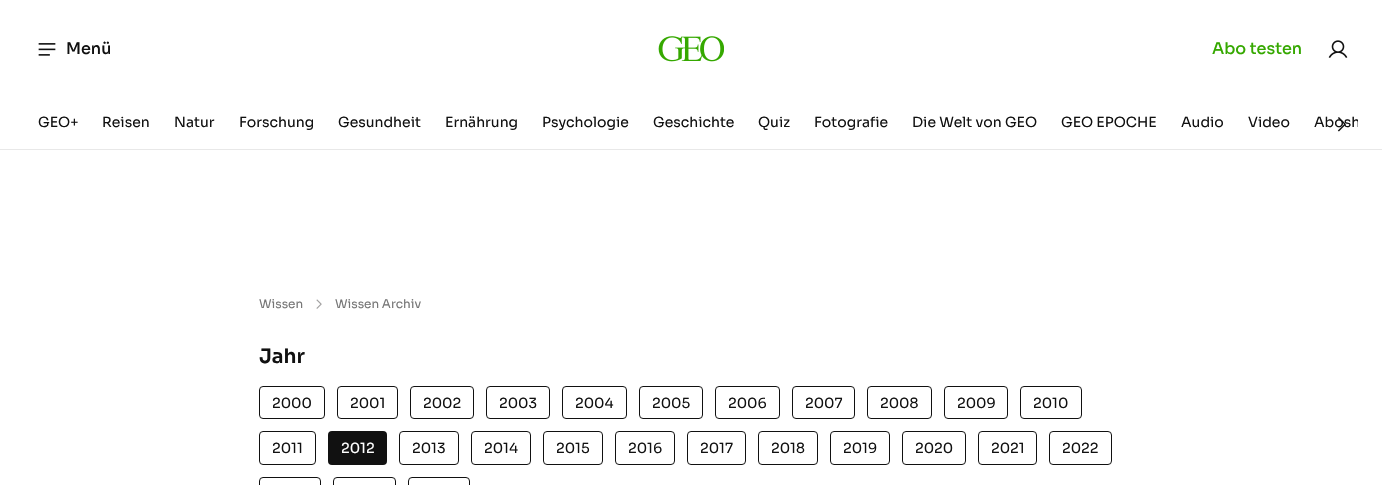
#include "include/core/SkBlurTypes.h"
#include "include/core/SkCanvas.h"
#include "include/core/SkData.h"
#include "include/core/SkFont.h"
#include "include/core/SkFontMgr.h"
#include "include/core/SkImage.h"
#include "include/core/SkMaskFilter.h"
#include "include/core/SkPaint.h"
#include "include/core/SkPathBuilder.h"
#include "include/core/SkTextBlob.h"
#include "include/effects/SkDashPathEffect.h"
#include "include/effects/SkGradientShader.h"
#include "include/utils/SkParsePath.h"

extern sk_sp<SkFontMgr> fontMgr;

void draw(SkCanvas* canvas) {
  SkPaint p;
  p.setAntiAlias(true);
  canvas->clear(SK_ColorWHITE);
  canvas->drawImageRect(SkImages::DeferredFromEncodedData(SkData::MakeFromFileName("images/1.png")), SkRect::MakeLTRB(38, 43, 56, 56), SkSamplingOptions());
  canvas->drawImageRect(SkImages::DeferredFromEncodedData(SkData::MakeFromFileName("images/2.png")), SkRect::MakeLTRB(658, 36, 724, 62), SkSamplingOptions());
  canvas->drawImageRect(SkImages::DeferredFromEncodedData(SkData::MakeFromFileName("images/3.png")), SkRect::MakeLTRB(1328, 40, 1348, 58), SkSamplingOptions());
  p.setColor(SkColorSetRGB(232, 232, 232));
  canvas->drawRect(SkRect::MakeLTRB(0, 149, 1382, 150), p);
  canvas->drawImageRect(SkImages::DeferredFromEncodedData(SkData::MakeFromFileName("images/5.png")), SkRect::MakeLTRB(316, 299, 322, 309), SkSamplingOptions());
  p.setStyle(SkPaint::kStroke_Style);
  p.setStrokeWidth(1);
  p.setColor(SkColorSetRGB(17, 17, 17));
  canvas->drawRoundRect(SkRect::MakeLTRB(259.5f, 386.5f, 324.5f, 418.5f), 3.5f, 3.5f, p);
  canvas->drawRoundRect(SkRect::MakeLTRB(337.5f, 386.5f, 397.5f, 418.5f), 3.5f, 3.5f, p);
  canvas->drawRoundRect(SkRect::MakeLTRB(410.5f, 386.5f, 473.5f, 418.5f), 3.5f, 3.5f, p);
  canvas->drawRoundRect(SkRect::MakeLTRB(486.5f, 386.5f, 549.5f, 418.5f), 3.5f, 3.5f, p);
  canvas->drawRoundRect(SkRect::MakeLTRB(562.5f, 386.5f, 626.5f, 418.5f), 3.5f, 3.5f, p);
  canvas->drawRoundRect(SkRect::MakeLTRB(639.5f, 386.5f, 702.5f, 418.5f), 3.5f, 3.5f, p);
  canvas->drawRoundRect(SkRect::MakeLTRB(715.5f, 386.5f, 779.5f, 418.5f), 3.5f, 3.5f, p);
  canvas->drawRoundRect(SkRect::MakeLTRB(792.5f, 386.5f, 854.5f, 418.5f), 3.5f, 3.5f, p);
  canvas->drawRoundRect(SkRect::MakeLTRB(867.5f, 386.5f, 931.5f, 418.5f), 3.5f, 3.5f, p);
  canvas->drawRoundRect(SkRect::MakeLTRB(944.5f, 386.5f, 1007.5f, 418.5f), 3.5f, 3.5f, p);
  canvas->drawRoundRect(SkRect::MakeLTRB(1020.5f, 386.5f, 1081.5f, 418.5f), 3.5f, 3.5f, p);
  canvas->drawRoundRect(SkRect::MakeLTRB(259.5f, 431.5f, 315.5f, 464.5f), 3.5f, 3.5f, p);
  p.setStyle(SkPaint::kFill_Style);
  canvas->drawRoundRect(SkRect::MakeLTRB(328, 431, 387, 465), 4, 4, p);
  p.setStyle(SkPaint::kStroke_Style);
  canvas->drawRoundRect(SkRect::MakeLTRB(399.5f, 431.5f, 458.5f, 464.5f), 3.5f, 3.5f, p);
  canvas->drawRoundRect(SkRect::MakeLTRB(471.5f, 431.5f, 530.5f, 464.5f), 3.5f, 3.5f, p);
  canvas->drawRoundRect(SkRect::MakeLTRB(543.5f, 431.5f, 602.5f, 464.5f), 3.5f, 3.5f, p);
  canvas->drawRoundRect(SkRect::MakeLTRB(615.5f, 431.5f, 674.5f, 464.5f), 3.5f, 3.5f, p);
  canvas->drawRoundRect(SkRect::MakeLTRB(687.5f, 431.5f, 745.5f, 464.5f), 3.5f, 3.5f, p);
  canvas->drawRoundRect(SkRect::MakeLTRB(758.5f, 431.5f, 817.5f, 464.5f), 3.5f, 3.5f, p);
  canvas->drawRoundRect(SkRect::MakeLTRB(830.5f, 431.5f, 889.5f, 464.5f), 3.5f, 3.5f, p);
  canvas->drawRoundRect(SkRect::MakeLTRB(902.5f, 431.5f, 965.5f, 464.5f), 3.5f, 3.5f, p);
  canvas->drawRoundRect(SkRect::MakeLTRB(978.5f, 431.5f, 1036.5f, 464.5f), 3.5f, 3.5f, p);
  canvas->drawRoundRect(SkRect::MakeLTRB(1049.5f, 431.5f, 1111.5f, 464.5f), 3.5f, 3.5f, p);
  canvas->drawRoundRect(SkRect::MakeLTRB(259.5f, 477.5f, 320.5f, 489.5f), 3.5f, 3.5f, p);
  canvas->drawRoundRect(SkRect::MakeLTRB(333.5f, 477.5f, 395.5f, 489.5f), 3.5f, 3.5f, p);
  canvas->drawRoundRect(SkRect::MakeLTRB(408.5f, 477.5f, 469.5f, 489.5f), 3.5f, 3.5f, p);
  SkFont font1(fontMgr->matchFamilyStyle("Sora", SkFontStyle(500, SkFontStyle::kNormal_Width, SkFontStyle::kUpright_Slant)), 16);
  font1.setSubpixel(true);
  p.setStyle(SkPaint::kFill_Style);
  canvas->drawString("Menü", 66, 54, font1, p);
  p.setColor(SkColorSetRGB(53, 168, 0));
  canvas->drawString("Abo testen", 1212, 54, font1, p);
  SkFont font2(fontMgr->matchFamilyStyle("Sora", SkFontStyle::Normal()), 14);
  font2.setSubpixel(true);
  p.setColor(SkColorSetRGB(17, 17, 17));
  canvas->drawString("GEO+", 38, 127, font2, p);
  canvas->drawString("Reisen", 102, 127, font2, p);
  canvas->drawString("Natur", 174, 127, font2, p);
  canvas->drawString("Forschung", 239, 127, font2, p);
  canvas->drawString("Gesundheit", 338, 127, font2, p);
  canvas->drawString("Ernährung", 445, 127, font2, p);
  canvas->drawString("Psychologie", 542, 127, font2, p);
  canvas->drawString("Geschichte", 653, 127, font2, p);
  canvas->drawString("Quiz", 758, 127, font2, p);
  canvas->drawString("Fotografie", 814, 127, font2, p);
  canvas->drawString("Die Welt von GEO", 912, 127, font2, p);
  canvas->drawString("GEO EPOCHE", 1061, 127, font2, p);
  canvas->drawString("Audio", 1181, 127, font2, p);
  canvas->drawString("Video", 1248, 127, font2, p);
  canvas->save();
  canvas->clipRect(SkRect::MakeLTRB(24, 108, 1358, 140));
  canvas->drawString("Abosh", 1314, 127, font2, p);
  canvas->restore();
  canvas->drawImageRect(SkImages::DeferredFromEncodedData(SkData::MakeFromFileName("images/4.png")), SkRect::MakeLTRB(1337, 117, 1346, 132), SkSamplingOptions());
  SkFont font3(fontMgr->matchFamilyStyle("Sora", SkFontStyle::Normal()), 12);
  font3.setSubpixel(true);
  p.setColor(SkColorSetRGB(118, 118, 118));
  canvas->drawString("Wissen", 259, 308, font3, p);
  canvas->drawString("Wissen Archiv", 335, 308, font3, p);
  SkFont font4(fontMgr->matchFamilyStyle("Sora", SkFontStyle(600, SkFontStyle::kNormal_Width, SkFontStyle::kUpright_Slant)), 20);
  font4.setSubpixel(true);
  p.setColor(SkColorSetRGB(17, 17, 17));
  canvas->drawString("Jahr", 259, 363, font4, p);
  canvas->drawString("2000", 272, 408, font2, p);
  canvas->drawString("2001", 350, 408, font2, p);
  canvas->drawString("2002", 423, 408, font2, p);
  canvas->drawString("2003", 499, 408, font2, p);
  canvas->drawString("2004", 575, 408, font2, p);
  canvas->drawString("2005", 652, 408, font2, p);
  canvas->drawString("2006", 728, 408, font2, p);
  canvas->drawString("2007", 805, 408, font2, p);
  canvas->drawString("2008", 880, 408, font2, p);
  canvas->drawString("2009", 957, 408, font2, p);
  canvas->drawString("2010", 1033, 408, font2, p);
  canvas->drawString("2011", 272, 453, font2, p);
  p.setColor(SK_ColorWHITE);
  canvas->drawString("2012", 341, 453, font2, p);
  p.setColor(SkColorSetRGB(17, 17, 17));
  canvas->drawString("2013", 412, 453, font2, p);
  canvas->drawString("2014", 484, 453, font2, p);
  canvas->drawString("2015", 556, 453, font2, p);
  canvas->drawString("2016", 628, 453, font2, p);
  canvas->drawString("2017", 700, 453, font2, p);
  canvas->drawString("2018", 771, 453, font2, p);
  canvas->drawString("2019", 843, 453, font2, p);
  canvas->drawString("2020", 915, 453, font2, p);
  canvas->drawString("2021", 991, 453, font2, p);
  canvas->drawString("2022", 1062, 453, font2, p);
}
